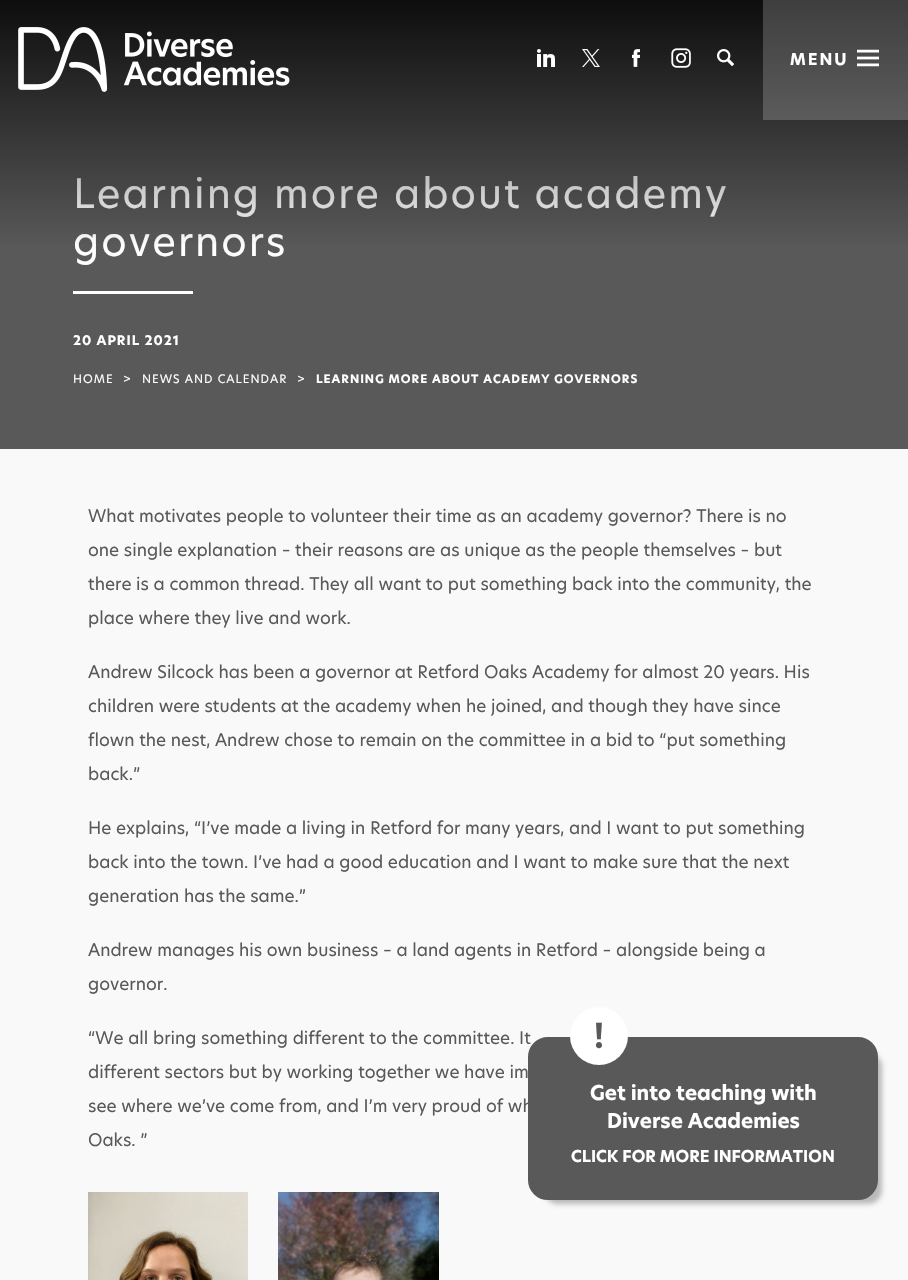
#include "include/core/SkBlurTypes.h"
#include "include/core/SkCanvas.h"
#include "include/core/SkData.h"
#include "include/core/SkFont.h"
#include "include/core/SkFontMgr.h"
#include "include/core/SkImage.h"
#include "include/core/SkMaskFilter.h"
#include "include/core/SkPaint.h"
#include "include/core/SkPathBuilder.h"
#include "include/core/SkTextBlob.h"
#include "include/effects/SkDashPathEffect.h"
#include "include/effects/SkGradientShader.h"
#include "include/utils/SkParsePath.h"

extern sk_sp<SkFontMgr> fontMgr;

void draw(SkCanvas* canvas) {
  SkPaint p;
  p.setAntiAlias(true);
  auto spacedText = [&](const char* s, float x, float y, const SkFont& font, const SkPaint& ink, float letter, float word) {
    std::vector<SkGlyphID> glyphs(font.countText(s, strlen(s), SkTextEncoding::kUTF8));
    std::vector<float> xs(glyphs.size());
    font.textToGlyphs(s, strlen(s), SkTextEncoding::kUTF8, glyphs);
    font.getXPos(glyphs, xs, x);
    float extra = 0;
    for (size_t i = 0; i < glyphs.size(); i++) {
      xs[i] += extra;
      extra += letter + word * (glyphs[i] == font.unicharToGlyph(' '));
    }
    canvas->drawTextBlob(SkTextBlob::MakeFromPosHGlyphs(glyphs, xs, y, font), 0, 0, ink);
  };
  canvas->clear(SkColorSetRGB(249, 249, 249));
  p.setColor(SkColorSetRGB(89, 89, 89));
  canvas->drawRect(SkRect::MakeLTRB(0, 0, 908, 449), p);
  p.setColor(SK_ColorWHITE);
  canvas->drawRect(SkRect::MakeLTRB(73, 291, 193, 294), p);
  canvas->drawImageRect(SkImages::DeferredFromEncodedData(SkData::MakeFromFileName("images/8.png")), SkRect::MakeLTRB(88, 1192, 248, 1280), SkSamplingOptions());
  canvas->drawImageRect(SkImages::DeferredFromEncodedData(SkData::MakeFromFileName("images/9.png")), SkRect::MakeLTRB(278, 1192, 439, 1280), SkSamplingOptions());
  p.setColor(SkColorSetARGB(66, 0, 0, 0));
  p.setMaskFilter(SkMaskFilter::MakeBlur(kNormal_SkBlurStyle, 2.5f));
  canvas->drawRoundRect(SkRect::MakeLTRB(544, 1053, 882, 1204), 14, 14, p);
  p.setMaskFilter(nullptr);
  p.setColor(SkColorSetRGB(89, 89, 89));
  canvas->drawRoundRect(SkRect::MakeLTRB(529, 1038, 877, 1199), 19, 19, p);
  p.setStyle(SkPaint::kStroke_Style);
  p.setStrokeWidth(2);
  canvas->drawRoundRect(SkRect::MakeLTRB(529, 1038, 877, 1199), 19, 19, p);
  p.setStyle(SkPaint::kFill_Style);
  p.setColor(SK_ColorWHITE);
  canvas->drawCircle(599, 1036, 29, p);
  SkFont font1(fontMgr->matchFamilyStyle("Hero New", SkFontStyle::Normal()), 40);
  font1.setSubpixel(true);
  spacedText("Learning more about academy", 73, 208, font1, p, 2, 0);
  spacedText("governors", 73, 256, font1, p, 2, 0);
  {
    const SkColor colors[] = {SkColorSetARGB(217, 0, 0, 0), SkColorSetARGB(0, 0, 0, 0)};
    const float stops[] = {0, 1};
    const SkPoint ends[] = {{454, 0}, {454, 250}};
    p.setShader(SkGradientShader::MakeLinear(ends, colors, stops, 2, SkTileMode::kClamp));
    p.setAlpha(255);
  }
  canvas->drawRect(SkRect::MakeLTRB(0, 0, 908, 244), p);
  p.setShader(nullptr);
  p.setColor(SkColorSetARGB(51, 255, 255, 255));
  canvas->drawRect(SkRect::MakeLTRB(763, 0, 908, 120), p);
  canvas->drawImageRect(SkImages::DeferredFromEncodedData(SkData::MakeFromFileName("images/7.png")), SkRect::MakeLTRB(857, 49, 879, 67), SkSamplingOptions());
  SkFont font2(fontMgr->matchFamilyStyle("Hero New", SkFontStyle::Bold()), 16);
  font2.setSubpixel(true);
  p.setColor(SK_ColorWHITE);
  spacedText("MENU", 790, 65, font2, p, 2, 0);
  canvas->drawImageRect(SkImages::DeferredFromEncodedData(SkData::MakeFromFileName("images/6.png")), SkRect::MakeLTRB(717, 49, 734, 66), SkSamplingOptions());
  canvas->drawImageRect(SkImages::DeferredFromEncodedData(SkData::MakeFromFileName("images/5.png")), SkRect::MakeLTRB(671, 48, 691, 68), SkSamplingOptions());
  canvas->drawImageRect(SkImages::DeferredFromEncodedData(SkData::MakeFromFileName("images/4.png")), SkRect::MakeLTRB(632, 49, 640, 67), SkSamplingOptions());
  canvas->drawImageRect(SkImages::DeferredFromEncodedData(SkData::MakeFromFileName("images/3.png")), SkRect::MakeLTRB(582, 49, 600, 67), SkSamplingOptions());
  canvas->drawImageRect(SkImages::DeferredFromEncodedData(SkData::MakeFromFileName("images/2.png")), SkRect::MakeLTRB(537, 49, 555, 67), SkSamplingOptions());
  canvas->drawImageRect(SkImages::DeferredFromEncodedData(SkData::MakeFromFileName("images/1.png")), SkRect::MakeLTRB(18, 27, 290, 92), SkSamplingOptions());
  SkFont font3(fontMgr->matchFamilyStyle("Hero New", SkFontStyle::Bold()), 13);
  font3.setSubpixel(true);
  spacedText("20 APRIL 2021", 73, 345, font3, p, 1, 0);
  SkFont font4(fontMgr->matchFamilyStyle("Hero New", SkFontStyle::Normal()), 11.5f);
  font4.setSubpixel(true);
  spacedText("HOME", 73, 383, font4, p, 1, 0);
  spacedText(">", 123, 383, font4, p, 1, 0);
  spacedText("NEWS AND CALENDAR", 142, 383, font4, p, 1, 0);
  spacedText(">", 297, 383, font4, p, 1, 0);
  SkFont font5(fontMgr->matchFamilyStyle("Hero New", SkFontStyle::Bold()), 11.5f);
  font5.setSubpixel(true);
  spacedText("LEARNING MORE ABOUT ACADEMY GOVERNORS", 316, 383, font5, p, 1, 0);
  SkFont font6(fontMgr->matchFamilyStyle("Hero New", SkFontStyle::Normal()), 17);
  font6.setSubpixel(true);
  p.setColor(SkColorSetRGB(89, 89, 89));
  canvas->drawString("What motivates people to volunteer their time as an academy governor? There is no", 88, 522, font6, p);
  canvas->drawString("one single explanation – their reasons are as unique as the people themselves – but", 88, 556, font6, p);
  canvas->drawString("there is a common thread. They all want to put something back into the community, the", 88, 590, font6, p);
  canvas->drawString("place where they live and work.", 88, 624, font6, p);
  canvas->drawString("Andrew Silcock has been a governor at Retford Oaks Academy for almost 20 years. His", 88, 678, font6, p);
  canvas->drawString("children were students at the academy when he joined, and though they have since", 88, 712, font6, p);
  canvas->drawString("flown the nest, Andrew chose to remain on the committee in a bid to “put something", 88, 746, font6, p);
  canvas->drawString("back.”", 88, 780, font6, p);
  canvas->drawString("He explains, “I’ve made a living in Retford for many years, and I want to put something", 88, 834, font6, p);
  canvas->drawString("back into the town. I’ve had a good education and I want to make sure that the next", 88, 868, font6, p);
  canvas->drawString("generation has the same.”", 88, 902, font6, p);
  canvas->drawString("Andrew manages his own business – a land agents in Retford – alongside being a", 88, 956, font6, p);
  canvas->drawString("governor.", 88, 990, font6, p);
  canvas->drawString("“We all bring something different to the committee. It", 88, 1044, font6, p);
  canvas->drawString("different sectors but by working together we have im", 88, 1078, font6, p);
  canvas->drawString("see where we’ve come from, and I’m very proud of wh", 88, 1112, font6, p);
  canvas->drawString("Oaks. ”", 88, 1146, font6, p);
  SkFont font7(fontMgr->matchFamilyStyle("Hero New", SkFontStyle::Bold()), 34);
  font7.setSubpixel(true);
  canvas->drawString("!", 594, 1048, font7, p);
  SkFont font8(fontMgr->matchFamilyStyle("Hero New", SkFontStyle::Bold()), 20);
  font8.setSubpixel(true);
  p.setColor(SK_ColorWHITE);
  canvas->drawString("Get into teaching with", 590, 1100, font8, p);
  canvas->drawString("Diverse Academies", 607, 1128, font8, p);
  canvas->drawString("CLICK FOR MORE INFORMATION", 571, 1162, font2, p);
}
